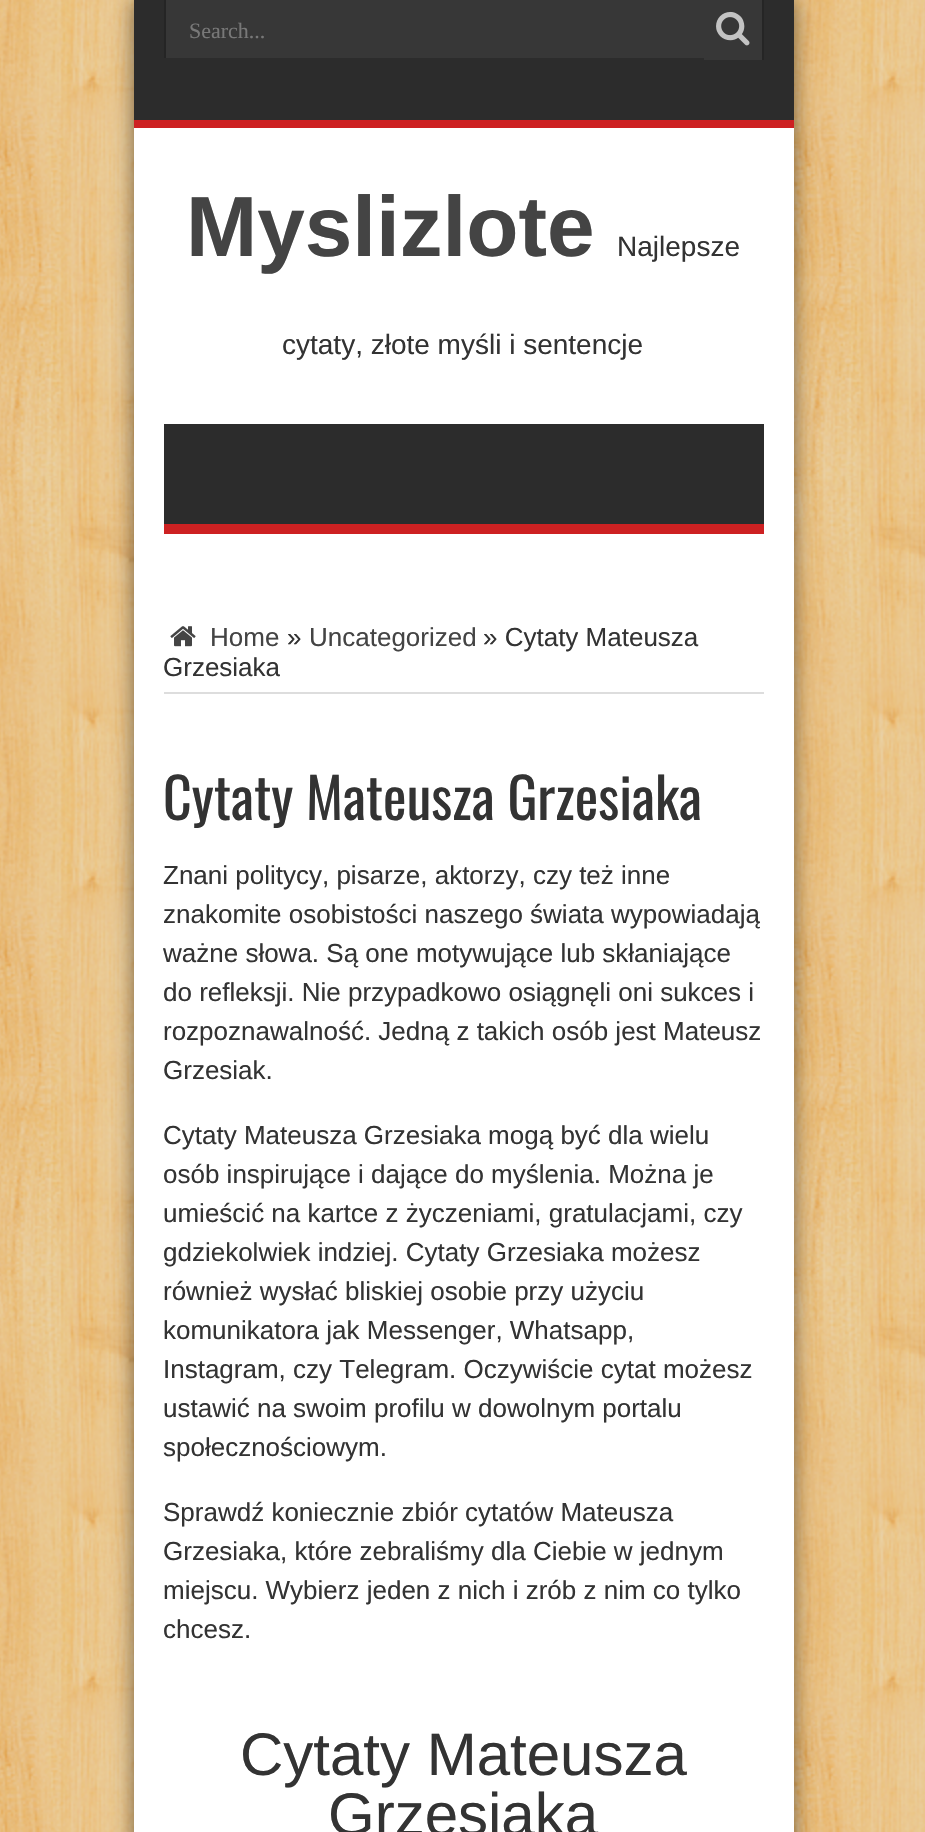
#include "include/core/SkBlurTypes.h"
#include "include/core/SkCanvas.h"
#include "include/core/SkData.h"
#include "include/core/SkFont.h"
#include "include/core/SkFontMgr.h"
#include "include/core/SkImage.h"
#include "include/core/SkMaskFilter.h"
#include "include/core/SkPaint.h"
#include "include/core/SkPathBuilder.h"
#include "include/core/SkTextBlob.h"
#include "include/effects/SkDashPathEffect.h"
#include "include/effects/SkGradientShader.h"
#include "include/utils/SkParsePath.h"

extern sk_sp<SkFontMgr> fontMgr;

void draw(SkCanvas* canvas) {
  SkPaint p;
  p.setAntiAlias(true);
  canvas->clear(SK_ColorWHITE);
  canvas->drawImageRect(SkImages::DeferredFromEncodedData(SkData::MakeFromFileName("images/1.png")), SkRect::MakeLTRB(0, 0, 925, 1832), SkSamplingOptions());
  p.setColor(SkColorSetARGB(128, 0, 0, 0));
  p.setMaskFilter(SkMaskFilter::MakeBlur(kNormal_SkBlurStyle, 10));
  canvas->drawRect(SkRect::MakeLTRB(134, 0, 794, 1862), p);
  p.setMaskFilter(nullptr);
  p.setColor(SK_ColorWHITE);
  canvas->drawRect(SkRect::MakeLTRB(134, 128, 794, 1832), p);
  p.setColor(SkColorSetRGB(44, 44, 44));
  canvas->drawRect(SkRect::MakeLTRB(134, 0, 794, 120), p);
  p.setColor(SkColorSetRGB(205, 33, 34));
  canvas->drawRect(SkRect::MakeLTRB(134, 120, 794, 128), p);
  p.setColor(SkColorSetRGB(55, 55, 55));
  canvas->drawRect(SkRect::MakeLTRB(166, 0, 704, 58), p);
  p.setColor(SkColorSetRGB(37, 37, 37));
  canvas->drawRect(SkRect::MakeLTRB(164, 0, 166, 58), p);
  p.setColor(SkColorSetRGB(55, 55, 55));
  canvas->drawRect(SkRect::MakeLTRB(704, 0, 762, 60), p);
  p.setColor(SkColorSetRGB(37, 37, 37));
  canvas->drawRect(SkRect::MakeLTRB(762, 0, 764, 60), p);
  canvas->drawImageRect(SkImages::DeferredFromEncodedData(SkData::MakeFromFileName("images/2.png")), SkRect::MakeLTRB(716, 11, 750, 46), SkSamplingOptions());
  p.setColor(SkColorSetRGB(44, 44, 44));
  canvas->drawRect(SkRect::MakeLTRB(164, 424, 764, 524), p);
  p.setColor(SkColorSetRGB(205, 33, 34));
  canvas->drawRect(SkRect::MakeLTRB(164, 524, 764, 534), p);
  p.setColor(SkColorSetRGB(221, 221, 221));
  canvas->drawRect(SkRect::MakeLTRB(164, 692, 764, 694), p);
  canvas->drawImageRect(SkImages::DeferredFromEncodedData(SkData::MakeFromFileName("images/3.png")), SkRect::MakeLTRB(170, 626, 196, 647), SkSamplingOptions());
  SkFont font1(fontMgr->matchFamilyStyle("Liberation Serif", SkFontStyle::Normal()), 22);
  font1.setSubpixel(true);
  p.setColor(SkColorSetRGB(120, 120, 120));
  canvas->drawString("Search...", 189, 38, font1, p);
  SkFont font2(fontMgr->matchFamilyStyle("Liberation Sans", SkFontStyle::Bold()), 85.5f);
  font2.setSubpixel(true);
  p.setColor(SkColorSetRGB(68, 68, 68));
  canvas->drawString("Myslizlote", 186, 256, font2, p);
  SkFont font3(fontMgr->matchFamilyStyle("Liberation Sans", SkFontStyle::Normal()), 28);
  font3.setSubpixel(true);
  p.setColor(SkColorSetRGB(51, 51, 51));
  canvas->drawString("Najlepsze", 617, 256, font3, p);
  canvas->drawString("cytaty, złote myśli i sentencje", 282, 354, font3, p);
  SkFont font4(fontMgr->matchFamilyStyle("Liberation Sans", SkFontStyle::Normal()), 26);
  font4.setSubpixel(true);
  p.setColor(SkColorSetRGB(68, 68, 68));
  canvas->drawString("Home", 210, 646, font4, p);
  p.setColor(SkColorSetRGB(51, 51, 51));
  canvas->drawString("»", 287, 646, font4, p);
  p.setColor(SkColorSetRGB(68, 68, 68));
  canvas->drawString("Uncategorized", 309, 646, font4, p);
  p.setColor(SkColorSetRGB(51, 51, 51));
  canvas->drawString("» Cytaty Mateusza", 483, 646, font4, p);
  canvas->drawString("Grzesiaka", 163, 676, font4, p);
  SkFont font5(fontMgr->matchFamilyStyle("Oswald", SkFontStyle::Normal()), 56);
  font5.setSubpixel(true);
  canvas->drawString("Cytaty Mateusza Grzesiaka", 163, 820, font5, p);
  canvas->drawString("Znani politycy, pisarze, aktorzy, czy też inne", 163, 884, font4, p);
  canvas->drawString("znakomite osobistości naszego świata wypowiadają", 163, 923, font4, p);
  canvas->drawString("ważne słowa. Są one motywujące lub skłaniające", 163, 962, font4, p);
  canvas->drawString("do refleksji. Nie przypadkowo osiągnęli oni sukces i", 163, 1001, font4, p);
  canvas->drawString("rozpoznawalność. Jedną z takich osób jest Mateusz", 163, 1040, font4, p);
  canvas->drawString("Grzesiak.", 163, 1079, font4, p);
  canvas->drawString("Cytaty Mateusza Grzesiaka mogą być dla wielu", 163, 1144, font4, p);
  canvas->drawString("osób inspirujące i dające do myślenia. Można je", 163, 1183, font4, p);
  canvas->drawString("umieścić na kartce z życzeniami, gratulacjami, czy", 163, 1222, font4, p);
  canvas->drawString("gdziekolwiek indziej. Cytaty Grzesiaka możesz", 163, 1261, font4, p);
  canvas->drawString("również wysłać bliskiej osobie przy użyciu", 163, 1300, font4, p);
  canvas->drawString("komunikatora jak Messenger, Whatsapp,", 163, 1339, font4, p);
  canvas->drawString("Instagram, czy Telegram. Oczywiście cytat możesz", 163, 1378, font4, p);
  canvas->drawString("ustawić na swoim profilu w dowolnym portalu", 163, 1417, font4, p);
  canvas->drawString("społecznościowym.", 163, 1456, font4, p);
  canvas->drawString("Sprawdź koniecznie zbiór cytatów Mateusza", 163, 1521, font4, p);
  canvas->drawString("Grzesiaka, które zebraliśmy dla Ciebie w jednym", 163, 1560, font4, p);
  canvas->drawString("miejscu. Wybierz jeden z nich i zrób z nim co tylko", 163, 1599, font4, p);
  canvas->drawString("chcesz.", 163, 1638, font4, p);
  SkFont font6(fontMgr->matchFamilyStyle("Liberation Sans", SkFontStyle::Normal()), 60);
  font6.setSubpixel(true);
  canvas->drawString("Cytaty Mateusza", 240, 1775, font6, p);
  canvas->drawString("Grzesiaka", 328, 1835, font6, p);
}
